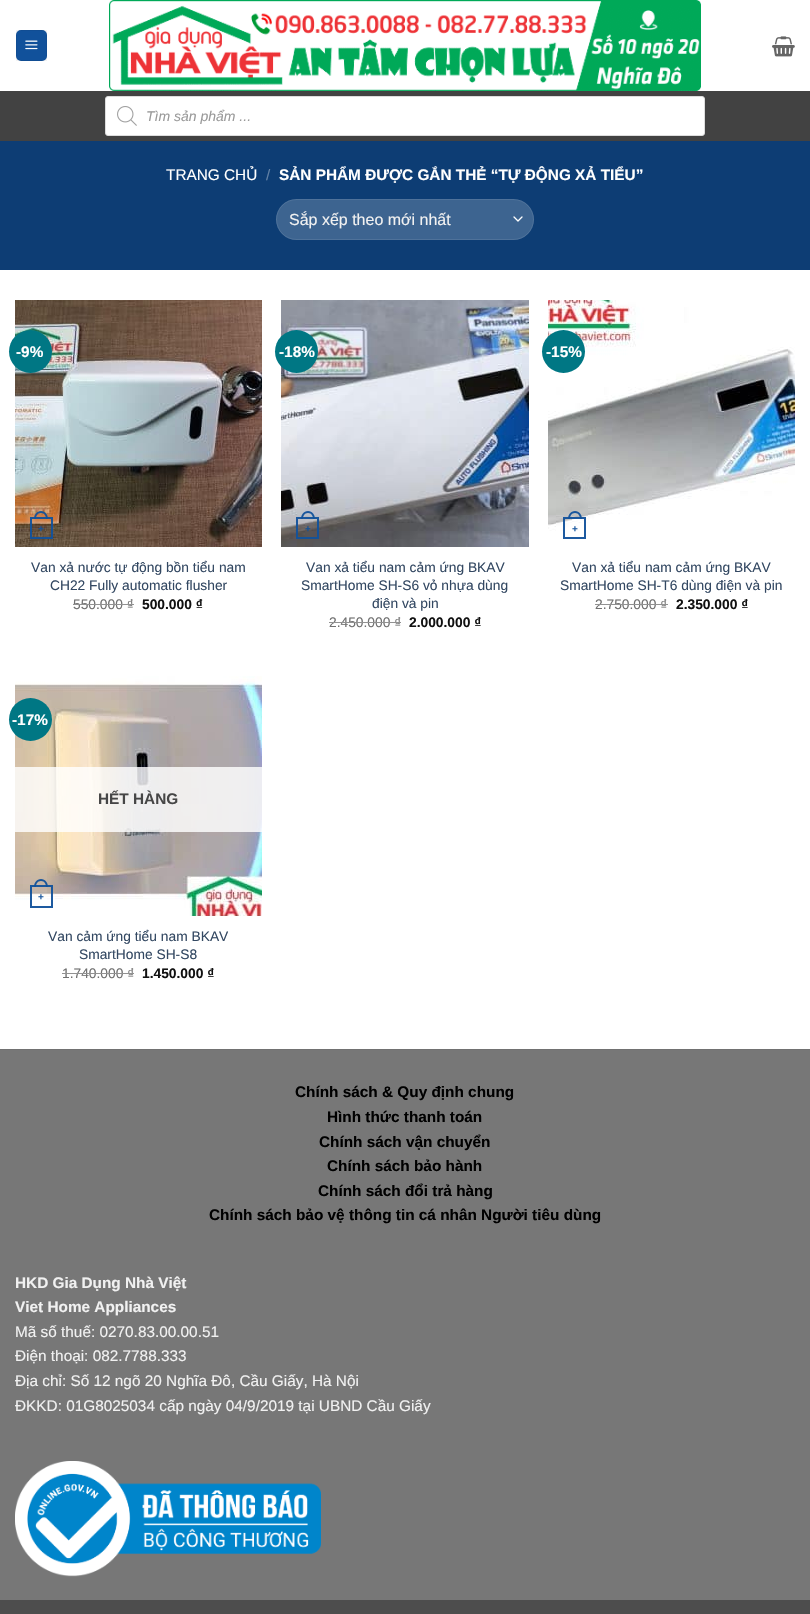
#include "include/core/SkBlurTypes.h"
#include "include/core/SkCanvas.h"
#include "include/core/SkData.h"
#include "include/core/SkFont.h"
#include "include/core/SkFontMgr.h"
#include "include/core/SkImage.h"
#include "include/core/SkMaskFilter.h"
#include "include/core/SkPaint.h"
#include "include/core/SkPathBuilder.h"
#include "include/core/SkTextBlob.h"
#include "include/effects/SkDashPathEffect.h"
#include "include/effects/SkGradientShader.h"
#include "include/utils/SkParsePath.h"

extern sk_sp<SkFontMgr> fontMgr;

void draw(SkCanvas* canvas) {
  SkPaint p;
  p.setAntiAlias(true);
  canvas->clear(SK_ColorWHITE);
  p.setColor(SkColorSetRGB(17, 81, 155));
  canvas->drawRoundRect(SkRect::MakeLTRB(16, 30, 47, 61), 5, 5, p);
  p.setStyle(SkPaint::kStroke_Style);
  p.setStrokeWidth(1);
  p.setColor(SkColorSetARGB(13, 0, 0, 0));
  canvas->drawRect(SkRect::MakeLTRB(16.5f, 30.5f, 46.5f, 60.5f), p);
  canvas->drawImageRect(SkImages::DeferredFromEncodedData(SkData::MakeFromFileName("images/1.png")), SkRect::MakeLTRB(25, 40, 38, 50), SkSamplingOptions());
  canvas->drawImageRect(SkImages::DeferredFromEncodedData(SkData::MakeFromFileName("images/2.png")), SkRect::MakeLTRB(109, 0, 701, 91), SkSamplingOptions());
  canvas->drawImageRect(SkImages::DeferredFromEncodedData(SkData::MakeFromFileName("images/3.png")), SkRect::MakeLTRB(772, 36, 795, 57), SkSamplingOptions());
  p.setStyle(SkPaint::kFill_Style);
  p.setColor(SkColorSetRGB(66, 66, 66));
  canvas->drawRect(SkRect::MakeLTRB(0, 91, 810, 141), p);
  p.setColor(SK_ColorWHITE);
  canvas->drawRoundRect(SkRect::MakeLTRB(105.5f, 96.5f, 704.5f, 135.5f), 2.5f, 2.5f, p);
  p.setStyle(SkPaint::kStroke_Style);
  p.setColor(SkColorSetRGB(221, 221, 221));
  canvas->drawRoundRect(SkRect::MakeLTRB(105.5f, 96.5f, 704.5f, 135.5f), 2.5f, 2.5f, p);
  canvas->drawImageRect(SkImages::DeferredFromEncodedData(SkData::MakeFromFileName("images/4.png")), SkRect::MakeLTRB(117, 106, 137, 126), SkSamplingOptions());
  p.setStyle(SkPaint::kFill_Style);
  p.setColor(SkColorSetRGB(13, 61, 116));
  canvas->drawRect(SkRect::MakeLTRB(0, 141, 810, 270), p);
  p.setColor(SkColorSetRGB(61, 100, 144));
  canvas->drawRoundRect(SkRect::MakeLTRB(276, 199, 534, 240), 20.5f, 20.5f, p);
  p.setStyle(SkPaint::kStroke_Style);
  p.setStrokeWidth(1.3f);
  p.setStrokeCap(SkPaint::kRound_Cap);
  p.setStrokeJoin(SkPaint::kRound_Join);
  p.setColor(SK_ColorWHITE);
  canvas->drawPath(SkPathBuilder().moveTo(514, 217).lineTo(518, 221).lineTo(522, 217).detach(), p);
  p.setStrokeWidth(1);
  p.setStrokeCap(SkPaint::kButt_Cap);
  p.setStrokeJoin(SkPaint::kMiter_Join);
  p.setColor(SkColorSetARGB(23, 255, 255, 255));
  canvas->drawRoundRect(SkRect::MakeLTRB(276.5f, 199.5f, 533.5f, 239.5f), 20, 20, p);
  canvas->drawImageRect(SkImages::DeferredFromEncodedData(SkData::MakeFromFileName("images/5.png")), SkRect::MakeLTRB(15, 300, 262, 547), SkSamplingOptions());
  p.setStyle(SkPaint::kFill_Style);
  p.setColor(SkColorSetRGB(0, 119, 132));
  canvas->drawCircle(30.5f, 351.5f, 21.5f, p);
  p.setStyle(SkPaint::kStroke_Style);
  p.setStrokeWidth(2);
  p.setColor(SkColorSetARGB(242, 17, 81, 155));
  canvas->drawRect(SkRect::MakeLTRB(31, 518, 52, 538), p);
  p.setStyle(SkPaint::kFill_Style);
  canvas->drawPath(SkPathBuilder(SkPathFillType::kEvenOdd).moveTo(41, 511).cubicTo(45.5f, 511, 48, 515, 48, 519).lineTo(34, 519).cubicTo(34, 515, 36.5f, 511, 41, 511).close().moveTo(41, 513).cubicTo(44.5f, 513, 46, 516, 46, 519).lineTo(36, 519).cubicTo(36, 516, 37.5f, 513, 41, 513).close().detach(), p);
  canvas->drawImageRect(SkImages::DeferredFromEncodedData(SkData::MakeFromFileName("images/6.png")), SkRect::MakeLTRB(281, 300, 529, 547), SkSamplingOptions());
  p.setColor(SkColorSetRGB(0, 119, 132));
  canvas->drawCircle(296.5f, 351.5f, 21.5f, p);
  p.setStyle(SkPaint::kStroke_Style);
  p.setColor(SkColorSetARGB(242, 17, 81, 155));
  canvas->drawRect(SkRect::MakeLTRB(297, 518, 318, 538), p);
  p.setStyle(SkPaint::kFill_Style);
  canvas->drawPath(SkPathBuilder(SkPathFillType::kEvenOdd).moveTo(308, 511).cubicTo(312.5f, 511, 315, 515, 315, 519).lineTo(301, 519).cubicTo(301, 515, 303.5f, 511, 308, 511).close().moveTo(308, 513).cubicTo(311.5f, 513, 313, 516, 313, 519).lineTo(303, 519).cubicTo(303, 516, 304.5f, 513, 308, 513).close().detach(), p);
  canvas->drawImageRect(SkImages::DeferredFromEncodedData(SkData::MakeFromFileName("images/7.png")), SkRect::MakeLTRB(548, 300, 795, 531), SkSamplingOptions());
  p.setColor(SkColorSetRGB(0, 119, 132));
  canvas->drawCircle(563.5f, 351.5f, 21.5f, p);
  p.setStyle(SkPaint::kStroke_Style);
  p.setColor(SkColorSetARGB(242, 17, 81, 155));
  canvas->drawRect(SkRect::MakeLTRB(564, 518, 585, 538), p);
  p.setStyle(SkPaint::kFill_Style);
  canvas->drawPath(SkPathBuilder(SkPathFillType::kEvenOdd).moveTo(575, 511).cubicTo(579.5f, 511, 582, 515, 582, 519).lineTo(568, 519).cubicTo(568, 515, 570.5f, 511, 575, 511).close().moveTo(575, 513).cubicTo(578.5f, 513, 580, 516, 580, 519).lineTo(570, 519).cubicTo(570, 516, 571.5f, 513, 575, 513).close().detach(), p);
  canvas->drawImageRect(SkImages::DeferredFromEncodedData(SkData::MakeFromFileName("images/8.png")), SkRect::MakeLTRB(15, 676, 262, 916), SkSamplingOptions());
  p.setColor(SkColorSetRGB(0, 119, 132));
  canvas->drawCircle(30.5f, 719.5f, 21.5f, p);
  p.setColor(SkColorSetARGB(207, 255, 255, 255));
  canvas->drawRect(SkRect::MakeLTRB(15, 767, 262, 832), p);
  p.setStyle(SkPaint::kStroke_Style);
  p.setColor(SkColorSetARGB(242, 17, 81, 155));
  canvas->drawRect(SkRect::MakeLTRB(31, 886, 52, 907), p);
  p.setStyle(SkPaint::kFill_Style);
  canvas->drawPath(SkPathBuilder(SkPathFillType::kEvenOdd).moveTo(41, 879).cubicTo(45.5f, 879, 48, 883, 48, 887).lineTo(34, 887).cubicTo(34, 883, 36.5f, 879, 41, 879).close().moveTo(41, 881).cubicTo(44.5f, 881, 46, 884, 46, 887).lineTo(36, 887).cubicTo(36, 884, 37.5f, 881, 41, 881).close().detach(), p);
  p.setColor(SkColorSetRGB(119, 119, 119));
  canvas->drawRect(SkRect::MakeLTRB(0, 1050, 810, 1600), p);
  p.setColor(SkColorSetRGB(113, 113, 113));
  canvas->drawRect(SkRect::MakeLTRB(0, 1049, 810, 1050), p);
  canvas->drawImageRect(SkImages::DeferredFromEncodedData(SkData::MakeFromFileName("images/9.png")), SkRect::MakeLTRB(15, 1461, 321, 1577), SkSamplingOptions());
  p.setColor(SkColorSetRGB(77, 77, 77));
  canvas->drawRect(SkRect::MakeLTRB(0, 1600, 810, 1614), p);
  SkFont font1(fontMgr->matchFamilyStyle("Liberation Sans", SkFontStyle::Italic()), 14);
  font1.setSubpixel(true);
  p.setColor(SkColorSetRGB(153, 153, 153));
  canvas->drawString("Tìm sản phẩm ...", 146, 121, font1, p);
  SkFont font2(fontMgr->matchFamilyStyle("Liberation Sans", SkFontStyle::Normal()), 15.35f);
  font2.setSubpixel(true);
  p.setColor(SK_ColorWHITE);
  canvas->drawString("TRANG CHỦ", 166, 180, font2, p);
  p.setColor(SkColorSetRGB(98, 129, 165));
  canvas->drawString("/", 266, 180, font2, p);
  SkFont font3(fontMgr->matchFamilyStyle("Liberation Sans", SkFontStyle::Bold()), 15.35f);
  font3.setSubpixel(true);
  p.setColor(SK_ColorWHITE);
  canvas->drawString("SẢN PHẨM ĐƯỢC GẮN THẺ “TỰ ĐỘNG XẢ TIỂU”", 279, 180, font3, p);
  SkFont font4(fontMgr->matchFamilyStyle("Liberation Sans", SkFontStyle::Normal()), 16);
  font4.setSubpixel(true);
  p.setColor(SkColorSetRGB(241, 241, 241));
  canvas->drawString("Sắp xếp theo mới nhất", 289, 225, font4, p);
  p.setColor(SK_ColorWHITE);
  canvas->drawString("-9%", 16, 357, font3, p);
  SkFont font5(fontMgr->matchFamilyStyle("Liberation Sans", SkFontStyle::Bold()), 10);
  font5.setSubpixel(true);
  p.setColor(SkColorSetRGB(21, 81, 150));
  canvas->drawString("+", 38, 532, font5, p);
  SkFont font6(fontMgr->matchFamilyStyle("Liberation Sans", SkFontStyle::Normal()), 13.8f);
  font6.setSubpixel(true);
  p.setColor(SkColorSetRGB(51, 72, 98));
  canvas->drawString("Van xả nước tự động bồn tiểu nam", 31, 572, font6, p);
  canvas->drawString("CH22 Fully automatic flusher", 50, 590, font6, p);
  p.setColor(SkColorSetRGB(112, 112, 112));
  canvas->drawString("550.000 ₫", 73, 609, font6, p);
  p.setColor(SkColorSetRGB(146, 146, 146));
  canvas->drawRect(SkRect::MakeLTRB(73, 604, 134, 605), p);
  SkFont font7(fontMgr->matchFamilyStyle("Liberation Sans", SkFontStyle::Bold()), 13.8f);
  font7.setSubpixel(true);
  p.setColor(SkColorSetRGB(17, 17, 17));
  canvas->drawString("500.000 ₫", 142, 609, font7, p);
  p.setColor(SK_ColorWHITE);
  canvas->drawString("-18%", 279, 357, font3, p);
  p.setColor(SkColorSetRGB(21, 81, 150));
  canvas->drawString("+", 305, 532, font5, p);
  p.setColor(SkColorSetRGB(51, 72, 98));
  canvas->drawString("Van xả tiểu nam cảm ứng BKAV", 306, 572, font6, p);
  canvas->drawString("SmartHome SH-S6 vỏ nhựa dùng", 301, 590, font6, p);
  canvas->drawString("điện và pin", 372, 608, font6, p);
  p.setColor(SkColorSetRGB(112, 112, 112));
  canvas->drawString("2.450.000 ₫", 329, 627, font6, p);
  p.setColor(SkColorSetRGB(146, 146, 146));
  canvas->drawRect(SkRect::MakeLTRB(329, 622, 401, 623), p);
  p.setColor(SkColorSetRGB(17, 17, 17));
  canvas->drawString("2.000.000 ₫", 409, 627, font7, p);
  p.setColor(SK_ColorWHITE);
  canvas->drawString("-15%", 546, 357, font3, p);
  p.setColor(SkColorSetRGB(29, 90, 160));
  canvas->drawString("+", 572, 532, font5, p);
  p.setColor(SkColorSetRGB(51, 72, 98));
  canvas->drawString("Van xả tiểu nam cảm ứng BKAV", 572, 572, font6, p);
  canvas->drawString("SmartHome SH-T6 dùng điện và pin", 560, 590, font6, p);
  p.setColor(SkColorSetRGB(112, 112, 112));
  canvas->drawString("2.750.000 ₫", 595, 609, font6, p);
  p.setColor(SkColorSetRGB(146, 146, 146));
  canvas->drawRect(SkRect::MakeLTRB(595, 604, 668, 605), p);
  p.setColor(SkColorSetRGB(17, 17, 17));
  canvas->drawString("2.350.000 ₫", 676, 609, font7, p);
  p.setColor(SK_ColorWHITE);
  canvas->drawString("-17%", 12, 725, font3, p);
  p.setColor(SkColorSetRGB(70, 70, 70));
  canvas->drawString("HẾT HÀNG", 98, 804, font3, p);
  p.setColor(SkColorSetRGB(29, 90, 160));
  canvas->drawString("+", 38, 900, font5, p);
  p.setColor(SkColorSetRGB(51, 72, 98));
  canvas->drawString("Van cảm ứng tiểu nam BKAV", 48, 941, font6, p);
  canvas->drawString("SmartHome SH-S8", 79, 959, font6, p);
  p.setColor(SkColorSetRGB(112, 112, 112));
  canvas->drawString("1.740.000 ₫", 62, 978, font6, p);
  p.setColor(SkColorSetRGB(146, 146, 146));
  canvas->drawRect(SkRect::MakeLTRB(62, 973, 134, 974), p);
  p.setColor(SkColorSetRGB(17, 17, 17));
  canvas->drawString("1.450.000 ₫", 142, 978, font7, p);
  p.setColor(SK_ColorBLACK);
  canvas->drawString("Chính sách & Quy định chung", 295, 1097, font3, p);
  canvas->drawString("Hình thức thanh toán", 327, 1122, font3, p);
  canvas->drawString("Chính sách vận chuyển", 319, 1147, font3, p);
  canvas->drawString("Chính sách bảo hành", 327, 1171, font3, p);
  canvas->drawString("Chính sách đổi trả hàng", 318, 1196, font3, p);
  canvas->drawString("Chính sách bảo vệ thông tin cá nhân Người tiêu dùng", 209, 1220, font3, p);
  p.setColor(SkColorSetRGB(241, 241, 241));
  canvas->drawString("HKD Gia Dụng Nhà Việt", 15, 1288, font3, p);
  canvas->drawString("Viet Home Appliances", 15, 1312, font3, p);
  canvas->drawString("Mã số thuế: 0270.83.00.00.51", 15, 1337, font2, p);
  canvas->drawString("Điện thoại: 082.7788.333", 15, 1361, font2, p);
  canvas->drawString("Địa chỉ: Số 12 ngõ 20 Nghĩa Đô, Cầu Giấy, Hà Nội", 15, 1386, font2, p);
  canvas->drawString("ĐKKD: 01G8025034 cấp ngày 04/9/2019 tại UBND Cầu Giấy", 15, 1411, font2, p);
}
